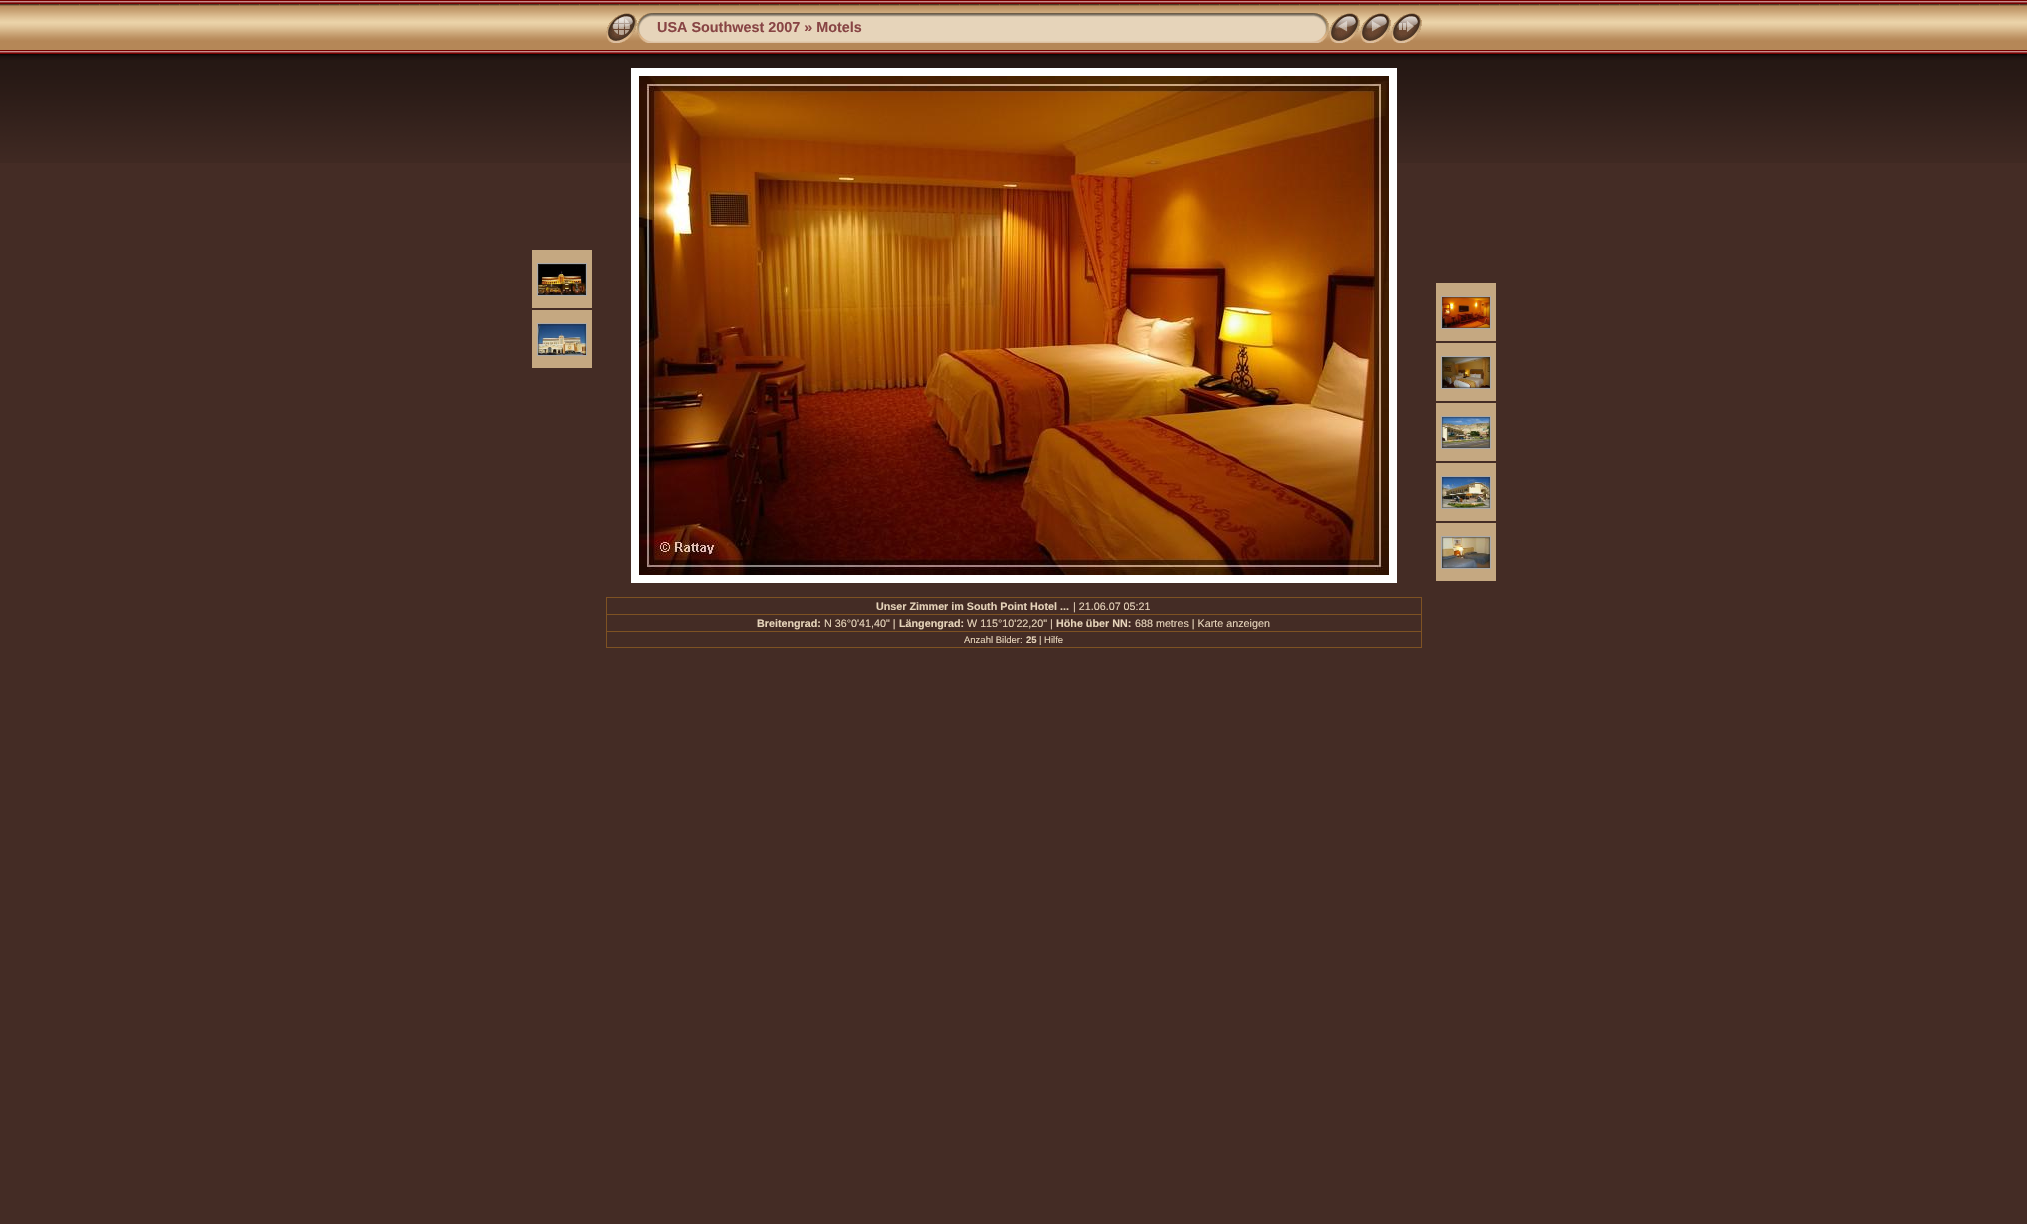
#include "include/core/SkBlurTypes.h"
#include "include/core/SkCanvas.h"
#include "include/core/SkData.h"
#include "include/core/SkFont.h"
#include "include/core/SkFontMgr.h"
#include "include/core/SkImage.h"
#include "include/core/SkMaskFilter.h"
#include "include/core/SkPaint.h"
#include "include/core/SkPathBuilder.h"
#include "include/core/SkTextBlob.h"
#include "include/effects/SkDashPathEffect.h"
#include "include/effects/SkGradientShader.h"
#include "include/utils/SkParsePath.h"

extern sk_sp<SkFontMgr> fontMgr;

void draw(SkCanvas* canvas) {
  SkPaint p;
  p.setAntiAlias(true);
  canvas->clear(SkColorSetRGB(68, 44, 37));
  canvas->drawImageRect(SkImages::DeferredFromEncodedData(SkData::MakeFromFileName("images/1.png")), SkRect::MakeLTRB(0, 0, 2027, 163), SkSamplingOptions());
  canvas->drawImageRect(SkImages::DeferredFromEncodedData(SkData::MakeFromFileName("images/2.png")), SkRect::MakeLTRB(606, 13, 637, 43), SkSamplingOptions());
  canvas->drawImageRect(SkImages::DeferredFromEncodedData(SkData::MakeFromFileName("images/3.png")), SkRect::MakeLTRB(637, 13, 657, 43), SkSamplingOptions());
  canvas->drawImageRect(SkImages::DeferredFromEncodedData(SkData::MakeFromFileName("images/4.png")), SkRect::MakeLTRB(657, 13, 1309, 43), SkSamplingOptions());
  canvas->drawImageRect(SkImages::DeferredFromEncodedData(SkData::MakeFromFileName("images/5.png")), SkRect::MakeLTRB(1309, 13, 1329, 43), SkSamplingOptions());
  canvas->drawImageRect(SkImages::DeferredFromEncodedData(SkData::MakeFromFileName("images/6.png")), SkRect::MakeLTRB(1329, 13, 1360, 43), SkSamplingOptions());
  canvas->drawImageRect(SkImages::DeferredFromEncodedData(SkData::MakeFromFileName("images/7.png")), SkRect::MakeLTRB(1360, 13, 1391, 43), SkSamplingOptions());
  canvas->drawImageRect(SkImages::DeferredFromEncodedData(SkData::MakeFromFileName("images/8.png")), SkRect::MakeLTRB(1391, 13, 1422, 43), SkSamplingOptions());
  p.setColor(SkColorSetRGB(197, 168, 129));
  canvas->drawRect(SkRect::MakeLTRB(532, 250, 592, 308), p);
  p.setStyle(SkPaint::kStroke_Style);
  p.setStrokeWidth(1);
  p.setColor(SkColorSetRGB(170, 170, 170));
  canvas->drawRect(SkRect::MakeLTRB(537.5f, 263.5f, 586.5f, 295.5f), p);
  canvas->drawImageRect(SkImages::DeferredFromEncodedData(SkData::MakeFromFileName("images/9.png")), SkRect::MakeLTRB(538, 264, 586, 295), SkSamplingOptions());
  p.setStyle(SkPaint::kFill_Style);
  p.setColor(SkColorSetRGB(197, 168, 129));
  canvas->drawRect(SkRect::MakeLTRB(532, 310, 592, 368), p);
  p.setStyle(SkPaint::kStroke_Style);
  p.setColor(SkColorSetRGB(170, 170, 170));
  canvas->drawRect(SkRect::MakeLTRB(537.5f, 323.5f, 586.5f, 355.5f), p);
  canvas->drawImageRect(SkImages::DeferredFromEncodedData(SkData::MakeFromFileName("images/10.png")), SkRect::MakeLTRB(538, 324, 586, 355), SkSamplingOptions());
  p.setStrokeWidth(8);
  p.setColor(SK_ColorWHITE);
  canvas->drawRect(SkRect::MakeLTRB(635, 72, 1393, 579), p);
  canvas->drawImageRect(SkImages::DeferredFromEncodedData(SkData::MakeFromFileName("images/11.png")), SkRect::MakeLTRB(639, 76, 1389, 575), SkSamplingOptions());
  p.setStyle(SkPaint::kFill_Style);
  p.setColor(SkColorSetRGB(197, 168, 129));
  canvas->drawRect(SkRect::MakeLTRB(1436, 283, 1496, 341), p);
  p.setStyle(SkPaint::kStroke_Style);
  p.setStrokeWidth(1);
  p.setColor(SkColorSetRGB(170, 170, 170));
  canvas->drawRect(SkRect::MakeLTRB(1441.5f, 296.5f, 1490.5f, 328.5f), p);
  canvas->drawImageRect(SkImages::DeferredFromEncodedData(SkData::MakeFromFileName("images/12.png")), SkRect::MakeLTRB(1442, 297, 1490, 328), SkSamplingOptions());
  p.setStyle(SkPaint::kFill_Style);
  p.setColor(SkColorSetRGB(197, 168, 129));
  canvas->drawRect(SkRect::MakeLTRB(1436, 343, 1496, 401), p);
  p.setStyle(SkPaint::kStroke_Style);
  p.setColor(SkColorSetRGB(170, 170, 170));
  canvas->drawRect(SkRect::MakeLTRB(1441.5f, 356.5f, 1490.5f, 388.5f), p);
  canvas->drawImageRect(SkImages::DeferredFromEncodedData(SkData::MakeFromFileName("images/13.png")), SkRect::MakeLTRB(1442, 357, 1490, 388), SkSamplingOptions());
  p.setStyle(SkPaint::kFill_Style);
  p.setColor(SkColorSetRGB(197, 168, 129));
  canvas->drawRect(SkRect::MakeLTRB(1436, 403, 1496, 461), p);
  p.setStyle(SkPaint::kStroke_Style);
  p.setColor(SkColorSetRGB(170, 170, 170));
  canvas->drawRect(SkRect::MakeLTRB(1441.5f, 416.5f, 1490.5f, 448.5f), p);
  canvas->drawImageRect(SkImages::DeferredFromEncodedData(SkData::MakeFromFileName("images/14.png")), SkRect::MakeLTRB(1442, 417, 1490, 448), SkSamplingOptions());
  p.setStyle(SkPaint::kFill_Style);
  p.setColor(SkColorSetRGB(197, 168, 129));
  canvas->drawRect(SkRect::MakeLTRB(1436, 463, 1496, 521), p);
  p.setStyle(SkPaint::kStroke_Style);
  p.setColor(SkColorSetRGB(170, 170, 170));
  canvas->drawRect(SkRect::MakeLTRB(1441.5f, 476.5f, 1490.5f, 508.5f), p);
  canvas->drawImageRect(SkImages::DeferredFromEncodedData(SkData::MakeFromFileName("images/15.png")), SkRect::MakeLTRB(1442, 477, 1490, 508), SkSamplingOptions());
  p.setStyle(SkPaint::kFill_Style);
  p.setColor(SkColorSetRGB(197, 168, 129));
  canvas->drawRect(SkRect::MakeLTRB(1436, 523, 1496, 581), p);
  p.setStyle(SkPaint::kStroke_Style);
  p.setColor(SkColorSetRGB(170, 170, 170));
  canvas->drawRect(SkRect::MakeLTRB(1441.5f, 536.5f, 1490.5f, 568.5f), p);
  canvas->drawImageRect(SkImages::DeferredFromEncodedData(SkData::MakeFromFileName("images/16.png")), SkRect::MakeLTRB(1442, 537, 1490, 568), SkSamplingOptions());
  p.setStyle(SkPaint::kFill_Style);
  p.setColor(SkColorSetRGB(126, 82, 35));
  canvas->drawRect(SkRect::MakeLTRB(606, 597, 1422, 598), p);
  canvas->drawRect(SkRect::MakeLTRB(1421, 597, 1422, 648), p);
  canvas->drawRect(SkRect::MakeLTRB(606, 647, 1422, 648), p);
  canvas->drawRect(SkRect::MakeLTRB(606, 597, 607, 648), p);
  canvas->drawRect(SkRect::MakeLTRB(606, 614, 1422, 615), p);
  canvas->drawRect(SkRect::MakeLTRB(606, 631, 1422, 632), p);
  SkFont font1(fontMgr->matchFamilyStyle("Liberation Sans", SkFontStyle::Bold()), 14.4f);
  font1.setSubpixel(true);
  p.setColor(SkColorSetRGB(136, 68, 68));
  canvas->drawString("USA Southwest 2007 » Motels", 657, 32, font1, p);
  SkFont font2(fontMgr->matchFamilyStyle("Liberation Sans", SkFontStyle::Bold()), 10.75f);
  font2.setSubpixel(true);
  p.setColor(SkColorSetRGB(230, 212, 186));
  canvas->drawString("Unser Zimmer im South Point Hotel ...", 876, 610, font2, p);
  SkFont font3(fontMgr->matchFamilyStyle("Liberation Sans", SkFontStyle::Normal()), 10.75f);
  font3.setSubpixel(true);
  canvas->drawString("| 21.06.07 05:21", 1073, 610, font3, p);
  canvas->drawString("Breitengrad:", 757, 627, font2, p);
  canvas->drawString("N 36°0'41,40\" |", 824, 627, font3, p);
  canvas->drawString("Längengrad:", 899, 627, font2, p);
  canvas->drawString("W 115°10'22,20\" |", 967, 627, font3, p);
  canvas->drawString("Höhe über NN:", 1056, 627, font2, p);
  canvas->drawString("688 metres | Karte anzeigen", 1135, 627, font3, p);
  SkFont font4(fontMgr->matchFamilyStyle("Liberation Sans", SkFontStyle::Normal()), 9.5f);
  font4.setSubpixel(true);
  canvas->drawString("Anzahl Bilder:", 964, 643, font4, p);
  SkFont font5(fontMgr->matchFamilyStyle("Liberation Sans", SkFontStyle::Bold()), 9.5f);
  font5.setSubpixel(true);
  canvas->drawString("25", 1026, 643, font5, p);
  canvas->drawString("| Hilfe", 1039, 643, font4, p);
}
